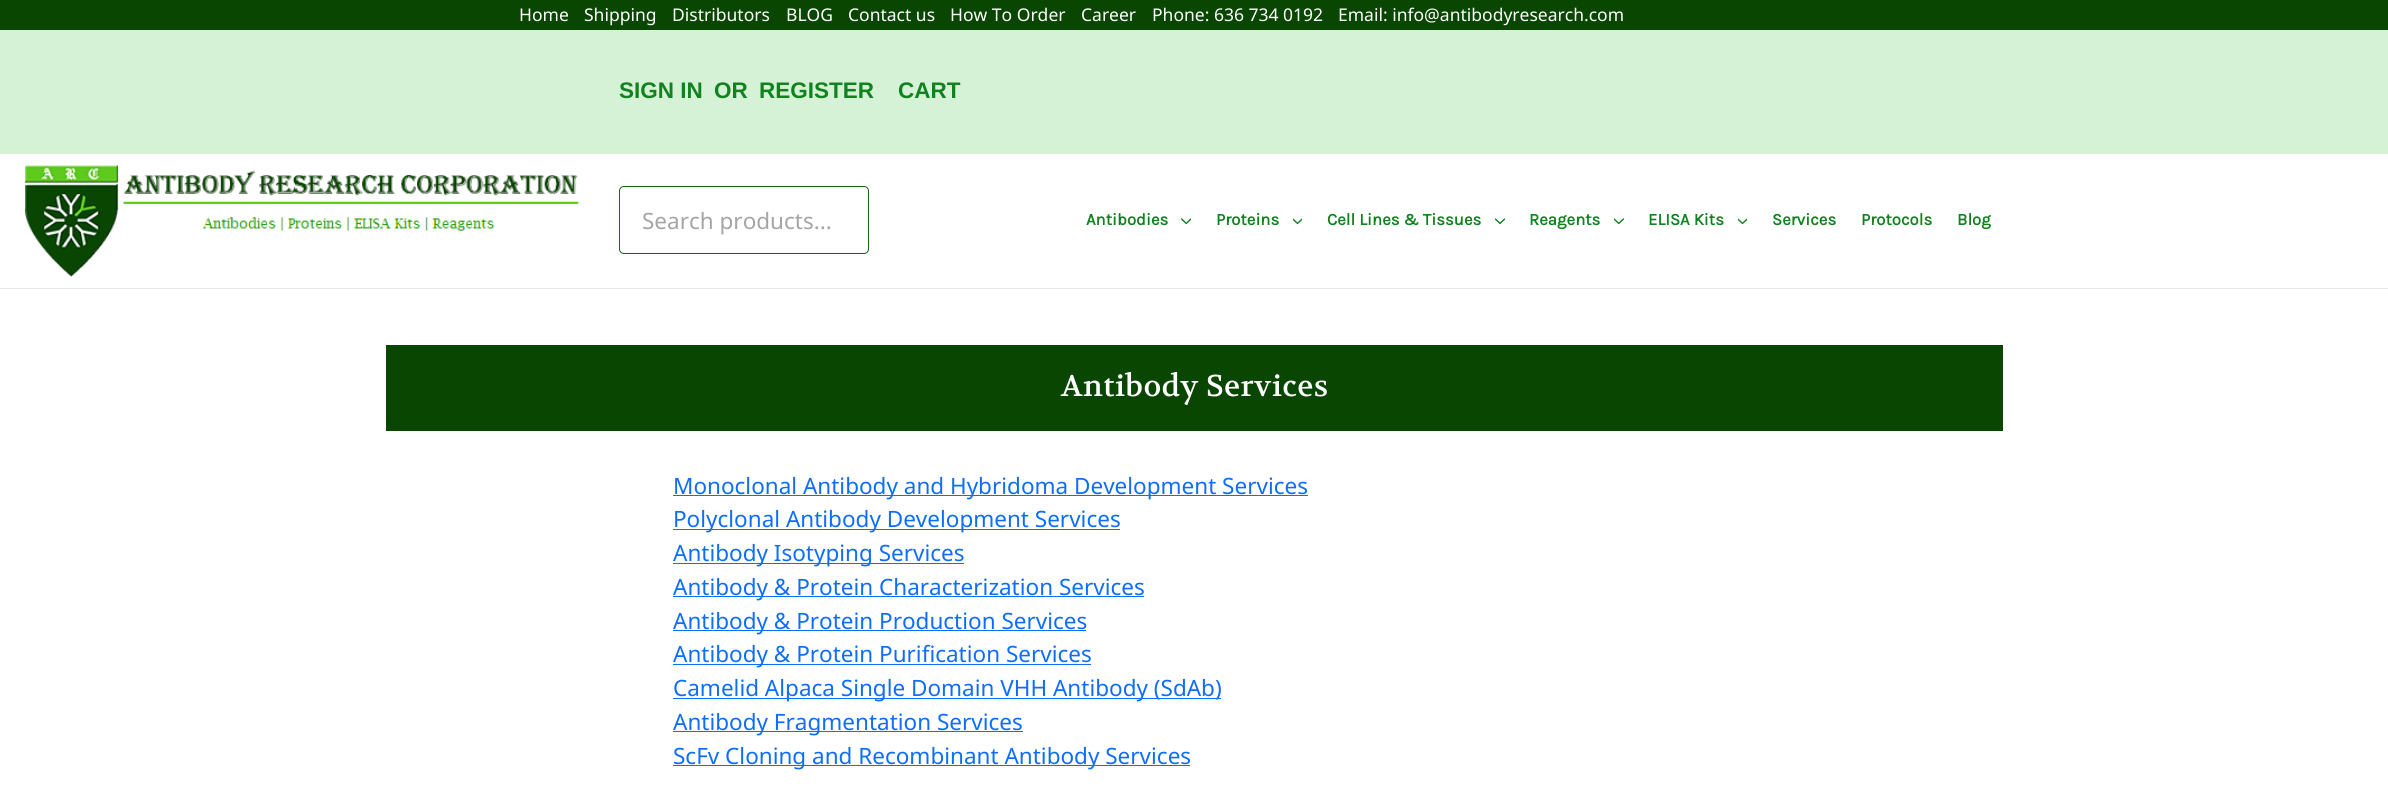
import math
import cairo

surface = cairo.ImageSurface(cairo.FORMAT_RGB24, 2388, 811)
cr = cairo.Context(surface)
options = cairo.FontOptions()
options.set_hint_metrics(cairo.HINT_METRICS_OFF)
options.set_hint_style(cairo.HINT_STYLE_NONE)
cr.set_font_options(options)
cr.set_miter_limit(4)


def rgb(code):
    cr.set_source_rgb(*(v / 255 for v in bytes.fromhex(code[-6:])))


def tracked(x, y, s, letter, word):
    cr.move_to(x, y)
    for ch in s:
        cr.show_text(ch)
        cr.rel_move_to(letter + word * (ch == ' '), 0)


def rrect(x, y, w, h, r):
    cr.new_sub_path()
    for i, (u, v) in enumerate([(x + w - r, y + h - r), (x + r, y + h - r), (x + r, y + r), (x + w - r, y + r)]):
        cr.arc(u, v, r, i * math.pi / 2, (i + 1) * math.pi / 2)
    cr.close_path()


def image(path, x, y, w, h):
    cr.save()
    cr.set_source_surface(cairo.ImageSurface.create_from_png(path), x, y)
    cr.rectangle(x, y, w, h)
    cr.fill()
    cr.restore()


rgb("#ffffff")
cr.paint()
for x, y, w, h, color in [
    (0, 30, 2388, 124, "#d6f2d6"),
    (0, 288, 2388, 1, "#e8e8e8"),
    (0, 0, 2388, 30, "#094602"),
]:
    rgb(color)
    cr.rectangle(x, y, w, h)
    cr.fill()
image("img/1.png", 25, 165, 554, 112)
rrect(619.5, 186.5, 249, 67, 4.5)
rgb("#15641a")
cr.set_line_width(1)
cr.stroke()
image("img/2.png", 1181, 218, 10, 7)
image("img/3.png", 1293, 218, 9, 7)
image("img/4.png", 1495, 218, 10, 7)
image("img/5.png", 1614, 218, 10, 7)
image("img/3.png", 1738, 218, 9, 7)
for x, y, w, h, color in [
    (386, 345, 1617, 86, "#094602"),
    (673, 495, 635, 1, "#0d6efd"),
    (673, 529, 447, 1, "#0d6efd"),
    (673, 563, 291, 1, "#0d6efd"),
    (673, 596, 471, 1, "#0d6efd"),
    (673, 630, 413, 1, "#0d6efd"),
    (673, 664, 418, 1, "#0d6efd"),
    (673, 698, 548, 1, "#0d6efd"),
    (673, 731, 350, 1, "#0d6efd"),
    (673, 765, 517, 1, "#0d6efd"),
]:
    rgb(color)
    cr.rectangle(x, y, w, h)
    cr.fill()
cr.select_font_face("Noto Sans")
cr.set_font_size(17.5)
rgb("#ffffff")
for x, y, s in [
    (519, 21, "Home"),
    (584, 21, "Shipping"),
    (672, 21, "Distributors"),
    (786, 21, "BLOG"),
    (848, 21, "Contact us"),
    (950, 21, "How To Order"),
    (1081, 21, "Career"),
    (1152, 21, "Phone: 636 734 0192"),
    (1338, 21, "Email: info@antibodyresearch.com"),
]:
    cr.move_to(x, y)
    cr.show_text(s)
cr.select_font_face("Liberation Sans", cairo.FONT_SLANT_NORMAL, cairo.FONT_WEIGHT_BOLD)
cr.set_font_size(22.5)
rgb("#10821f")
for x, y, s in [
    (619, 98, "SIGN IN"),
    (714, 98, "OR"),
    (759, 98, "REGISTER"),
    (898, 98, "CART"),
]:
    cr.move_to(x, y)
    cr.show_text(s)
cr.select_font_face("Noto Sans")
rgb("#a5a5a5")
cr.move_to(642, 229)
cr.show_text("Search products...")
cr.select_font_face("Karla", cairo.FONT_SLANT_NORMAL, cairo.FONT_WEIGHT_BOLD)
cr.set_font_size(16.75)
rgb("#10821f")
for x, y, s in [
    (1086, 225, "Antibodies"),
    (1216, 225, "Proteins"),
    (1327, 225, "Cell Lines & Tissues"),
    (1529, 225, "Reagents"),
    (1648, 225, "ELISA Kits"),
    (1772, 225, "Services"),
    (1861, 225, "Protocols"),
    (1957, 225, "Blog"),
]:
    cr.move_to(x, y)
    cr.show_text(s)
cr.select_font_face("Volkhov")
cr.set_font_size(30)
rgb("#ffffff")
tracked(1061, 396, "Antibody Services", 0.3, 0)
cr.select_font_face("Noto Sans")
cr.set_font_size(22.5)
rgb("#0d6efd")
for x, y, s in [
    (673, 494, "Monoclonal Antibody and Hybridoma Development Services"),
    (673, 527, "Polyclonal Antibody Development Services"),
    (673, 561, "Antibody Isotyping Services"),
    (673, 595, "Antibody & Protein Characterization Services"),
    (673, 629, "Antibody & Protein Production Services"),
    (673, 662, "Antibody & Protein Purification Services"),
    (673, 696, "Camelid Alpaca Single Domain VHH Antibody (SdAb)"),
    (673, 730, "Antibody Fragmentation Services"),
    (673, 764, "ScFv Cloning and Recombinant Antibody Services"),
]:
    cr.move_to(x, y)
    cr.show_text(s)
surface.write_to_png("page.png")
